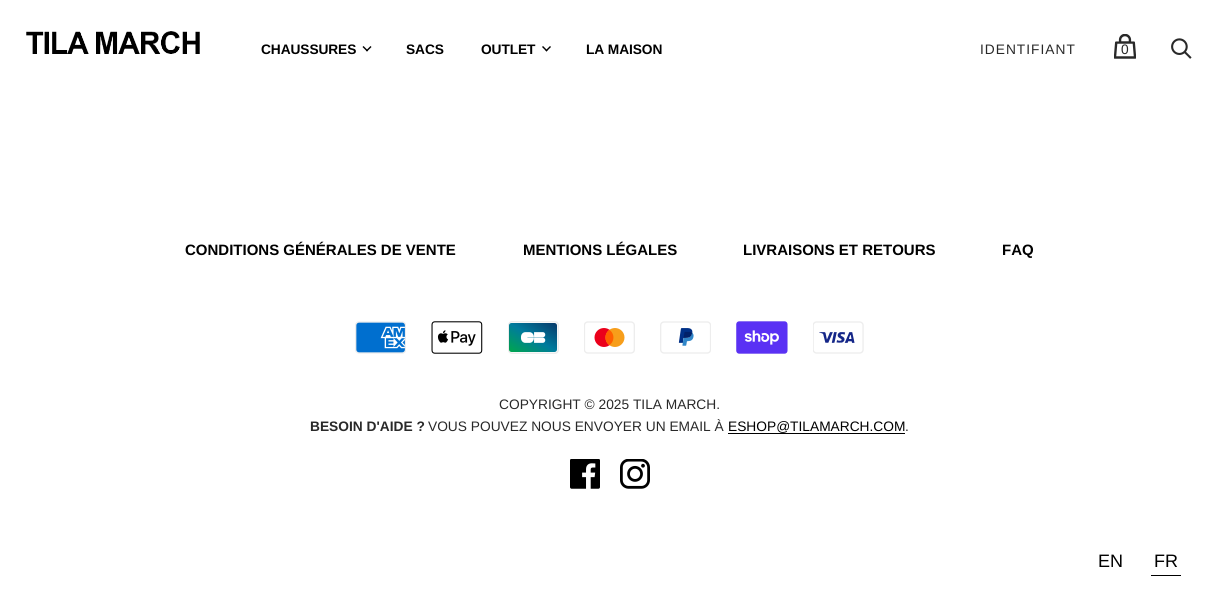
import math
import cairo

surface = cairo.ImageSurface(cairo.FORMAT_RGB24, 1218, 601)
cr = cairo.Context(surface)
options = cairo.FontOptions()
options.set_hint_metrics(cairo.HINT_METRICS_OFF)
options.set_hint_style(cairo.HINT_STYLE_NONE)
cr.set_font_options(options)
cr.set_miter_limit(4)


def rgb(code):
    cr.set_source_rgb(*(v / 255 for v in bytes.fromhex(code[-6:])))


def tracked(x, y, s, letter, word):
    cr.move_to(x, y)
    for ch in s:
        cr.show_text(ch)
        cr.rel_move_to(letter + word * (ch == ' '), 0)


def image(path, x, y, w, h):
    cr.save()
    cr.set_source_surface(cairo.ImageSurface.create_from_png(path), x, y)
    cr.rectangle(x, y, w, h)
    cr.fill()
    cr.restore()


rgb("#ffffff")
cr.paint()
image("img/1.png", 26, 31, 174, 23)
rgb("#000000")
cr.new_path()
cr.move_to(366, 50.5)
cr.line_to(370.5, 46)
cr.line_to(371.5, 47)
cr.line_to(367, 51.5)
cr.close_path()
cr.fill()
cr.new_path()
cr.move_to(362.5, 47)
cr.line_to(363.5, 46)
cr.line_to(368, 50.5)
cr.line_to(367, 51.5)
cr.close_path()
cr.fill()
cr.new_path()
cr.move_to(545.5, 50.5)
cr.line_to(550, 46)
cr.line_to(551, 47)
cr.line_to(546.5, 51.5)
cr.close_path()
cr.fill()
cr.new_path()
cr.move_to(542, 47)
cr.line_to(543, 46)
cr.line_to(547.5, 50.5)
cr.line_to(546.5, 51.5)
cr.close_path()
cr.fill()
image("img/2.png", 1114, 34, 22, 25)
image("img/3.png", 1171, 38, 21, 21)
image("img/4.png", 355, 321, 51, 33)
image("img/5.png", 431, 321, 52, 33)
image("img/6.png", 508, 321, 51, 33)
image("img/7.png", 584, 321, 51, 33)
image("img/8.png", 660, 321, 51, 33)
image("img/9.png", 736, 321, 52, 33)
image("img/10.png", 813, 321, 51, 33)
cr.rectangle(728, 433, 177, 1)
cr.fill()
image("img/11.png", 570, 459, 30, 30)
image("img/12.png", 620, 459, 30, 30)
cr.rectangle(1151, 575, 30, 1)
cr.fill()
cr.select_font_face("Liberation Sans", cairo.FONT_SLANT_NORMAL, cairo.FONT_WEIGHT_BOLD)
cr.set_font_size(13.75)
for x, y, s in [
    (261, 54, "CHAUSSURES"),
    (406, 54, "SACS"),
    (481, 54, "OUTLET"),
    (586, 54, "LA MAISON"),
]:
    tracked(x, y, s, -0.1, 0)
cr.select_font_face("Liberation Sans")
rgb("#292929")
tracked(980, 54, "IDENTIFIANT", 1, 0)
cr.move_to(1121, 54)
cr.show_text("0")
cr.select_font_face("Liberation Sans", cairo.FONT_SLANT_NORMAL, cairo.FONT_WEIGHT_BOLD)
cr.set_font_size(15)
rgb("#000000")
for x, y, s in [
    (185, 255, "CONDITIONS GÉNÉRALES DE VENTE"),
    (523, 255, "MENTIONS LÉGALES"),
    (743, 255, "LIVRAISONS ET RETOURS"),
    (1002, 255, "FAQ"),
]:
    cr.move_to(x, y)
    cr.show_text(s)
cr.select_font_face("Liberation Sans")
cr.set_font_size(13.75)
rgb("#292929")
cr.move_to(499, 409)
cr.show_text("COPYRIGHT © 2025 TILA MARCH.")
cr.select_font_face("Liberation Sans", cairo.FONT_SLANT_NORMAL, cairo.FONT_WEIGHT_BOLD)
cr.move_to(310, 431)
cr.show_text("BESOIN D'AIDE ?")
cr.select_font_face("Liberation Sans")
cr.move_to(428, 431)
cr.show_text("VOUS POUVEZ NOUS ENVOYER UN EMAIL À")
rgb("#000000")
cr.move_to(728, 431)
cr.show_text("ESHOP@TILAMARCH.COM")
rgb("#292929")
cr.move_to(905, 431)
cr.show_text(".")
cr.set_font_size(18)
rgb("#000000")
cr.move_to(1098, 567)
cr.show_text("EN")
cr.move_to(1154, 567)
cr.show_text("FR")
surface.write_to_png("page.png")
